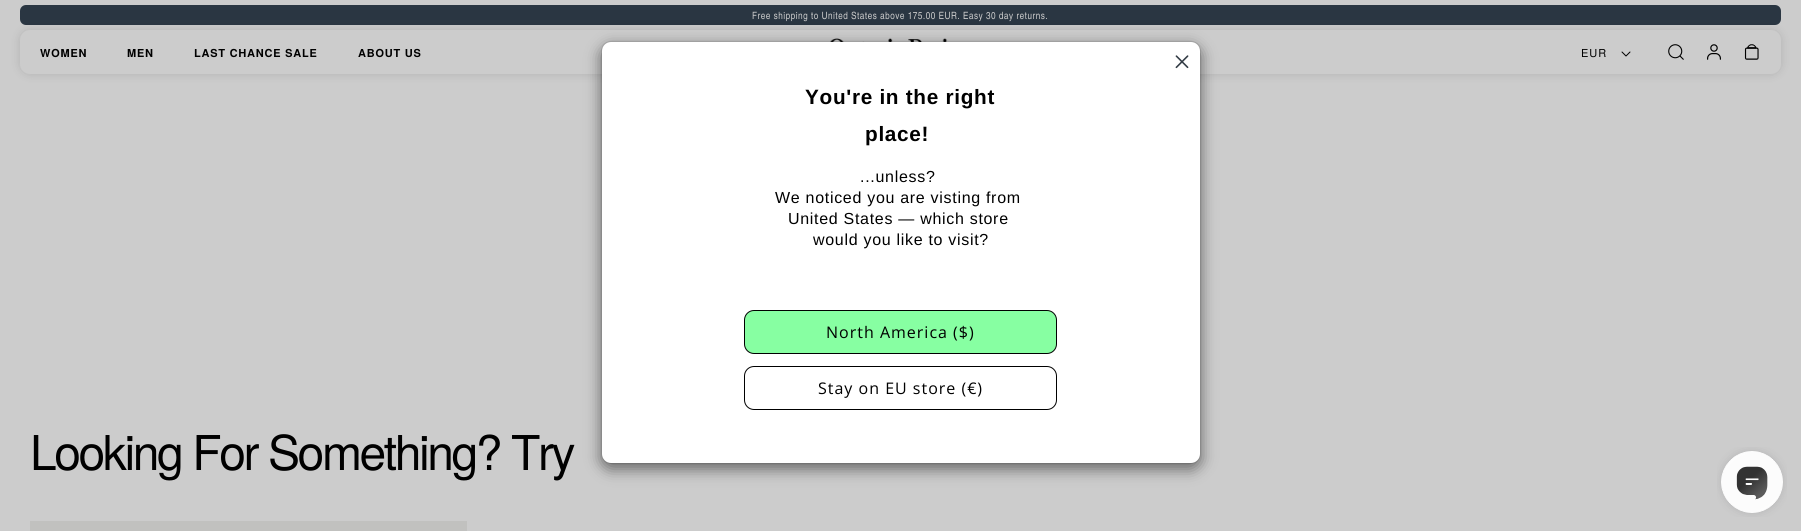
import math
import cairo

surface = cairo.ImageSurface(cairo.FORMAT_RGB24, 1801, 531)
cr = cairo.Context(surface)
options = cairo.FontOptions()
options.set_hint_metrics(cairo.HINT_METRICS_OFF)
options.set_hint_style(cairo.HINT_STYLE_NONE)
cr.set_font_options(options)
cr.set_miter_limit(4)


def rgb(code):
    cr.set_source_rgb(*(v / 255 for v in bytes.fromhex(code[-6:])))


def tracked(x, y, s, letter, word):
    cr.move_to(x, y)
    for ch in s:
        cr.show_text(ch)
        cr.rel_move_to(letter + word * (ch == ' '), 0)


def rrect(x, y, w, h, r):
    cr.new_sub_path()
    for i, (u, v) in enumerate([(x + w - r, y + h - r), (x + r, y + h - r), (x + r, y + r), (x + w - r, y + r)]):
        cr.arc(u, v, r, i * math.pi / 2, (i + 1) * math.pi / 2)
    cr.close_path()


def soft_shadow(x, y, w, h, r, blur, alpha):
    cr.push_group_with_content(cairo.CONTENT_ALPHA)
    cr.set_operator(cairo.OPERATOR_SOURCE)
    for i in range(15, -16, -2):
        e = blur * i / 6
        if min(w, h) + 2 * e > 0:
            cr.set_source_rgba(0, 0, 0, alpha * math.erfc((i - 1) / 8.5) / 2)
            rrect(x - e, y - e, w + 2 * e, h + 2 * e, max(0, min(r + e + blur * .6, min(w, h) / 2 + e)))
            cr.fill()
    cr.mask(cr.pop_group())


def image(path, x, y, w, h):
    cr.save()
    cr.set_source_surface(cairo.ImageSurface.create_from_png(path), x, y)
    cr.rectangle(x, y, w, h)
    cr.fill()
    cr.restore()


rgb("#cccccc")
cr.paint()
rgb("#2a3642")
rrect(20, 5, 1761, 20, 6)
cr.fill()
image("img/1.png", 752, 11, 295, 11)
rgb("#000000")
soft_shadow(20, 30, 1761, 44, 10, 5, 0.13)
rgb("#cccccc")
rrect(20, 30, 1761, 44, 10)
cr.fill()
image("img/2.png", 830, 38, 118, 4)
image("img/3.png", 40, 48, 46, 10)
image("img/4.png", 127, 49, 26, 8)
image("img/5.png", 194, 48, 123, 10)
image("img/6.png", 358, 48, 63, 10)
image("img/7.png", 1621, 51, 10, 6)
image("img/8.png", 1668, 44, 16, 16)
image("img/9.png", 1707, 44, 14, 16)
image("img/10.png", 1744, 44, 15, 16)
rgb("#000000")
soft_shadow(601, 46, 600, 423, 10, 7.5, 0.5)
rgb("#ffffff")
rrect(602, 42, 598, 421, 9)
cr.fill()
rrect(601.5, 41.5, 599, 422, 9.5)
cr.set_source_rgba(0, 0, 0, 0.1)
cr.set_line_width(1)
cr.stroke()
image("img/11.png", 1175, 55, 14, 14)
rgb("#87ffa2")
rrect(744.5, 310.5, 312, 43, 9.5)
cr.fill_preserve()
rgb("#000000")
cr.stroke()
rrect(744.5, 366.5, 312, 43, 9.5)
cr.stroke()
rgb("#c1c1bf")
cr.rectangle(30, 521, 437, 10)
cr.fill()
image("img/12.png", 1717, 447, 70, 70)
cr.select_font_face("TeX Gyre Heros")
cr.set_font_size(11)
rgb("#000000")
tracked(1581, 57, "EUR", 1, 0)
cr.select_font_face("Liberation Sans", cairo.FONT_SLANT_NORMAL, cairo.FONT_WEIGHT_BOLD)
cr.set_font_size(20.75)
tracked(805, 104, "You're in the right", 0.7, 0)
tracked(865, 141, "place!", 0.7, 0)
cr.select_font_face("Liberation Sans")
cr.set_font_size(16)
for x, y, s in [
    (860, 182, "...unless?"),
    (775, 203, "We noticed you are visting from"),
    (788, 224, "United States — which store"),
    (813, 245, "would you like to visit?"),
]:
    tracked(x, y, s, 0.7, 0)
cr.select_font_face("Open Sans")
tracked(826, 338, "North America ($)", 1, 0)
tracked(818, 394, "Stay on EU store (€)", 1, 0)
cr.select_font_face("TeX Gyre Heros")
cr.set_font_size(48)
tracked(30, 470, "Looking For Something? Try", -2.4, 0)
surface.write_to_png("page.png")
